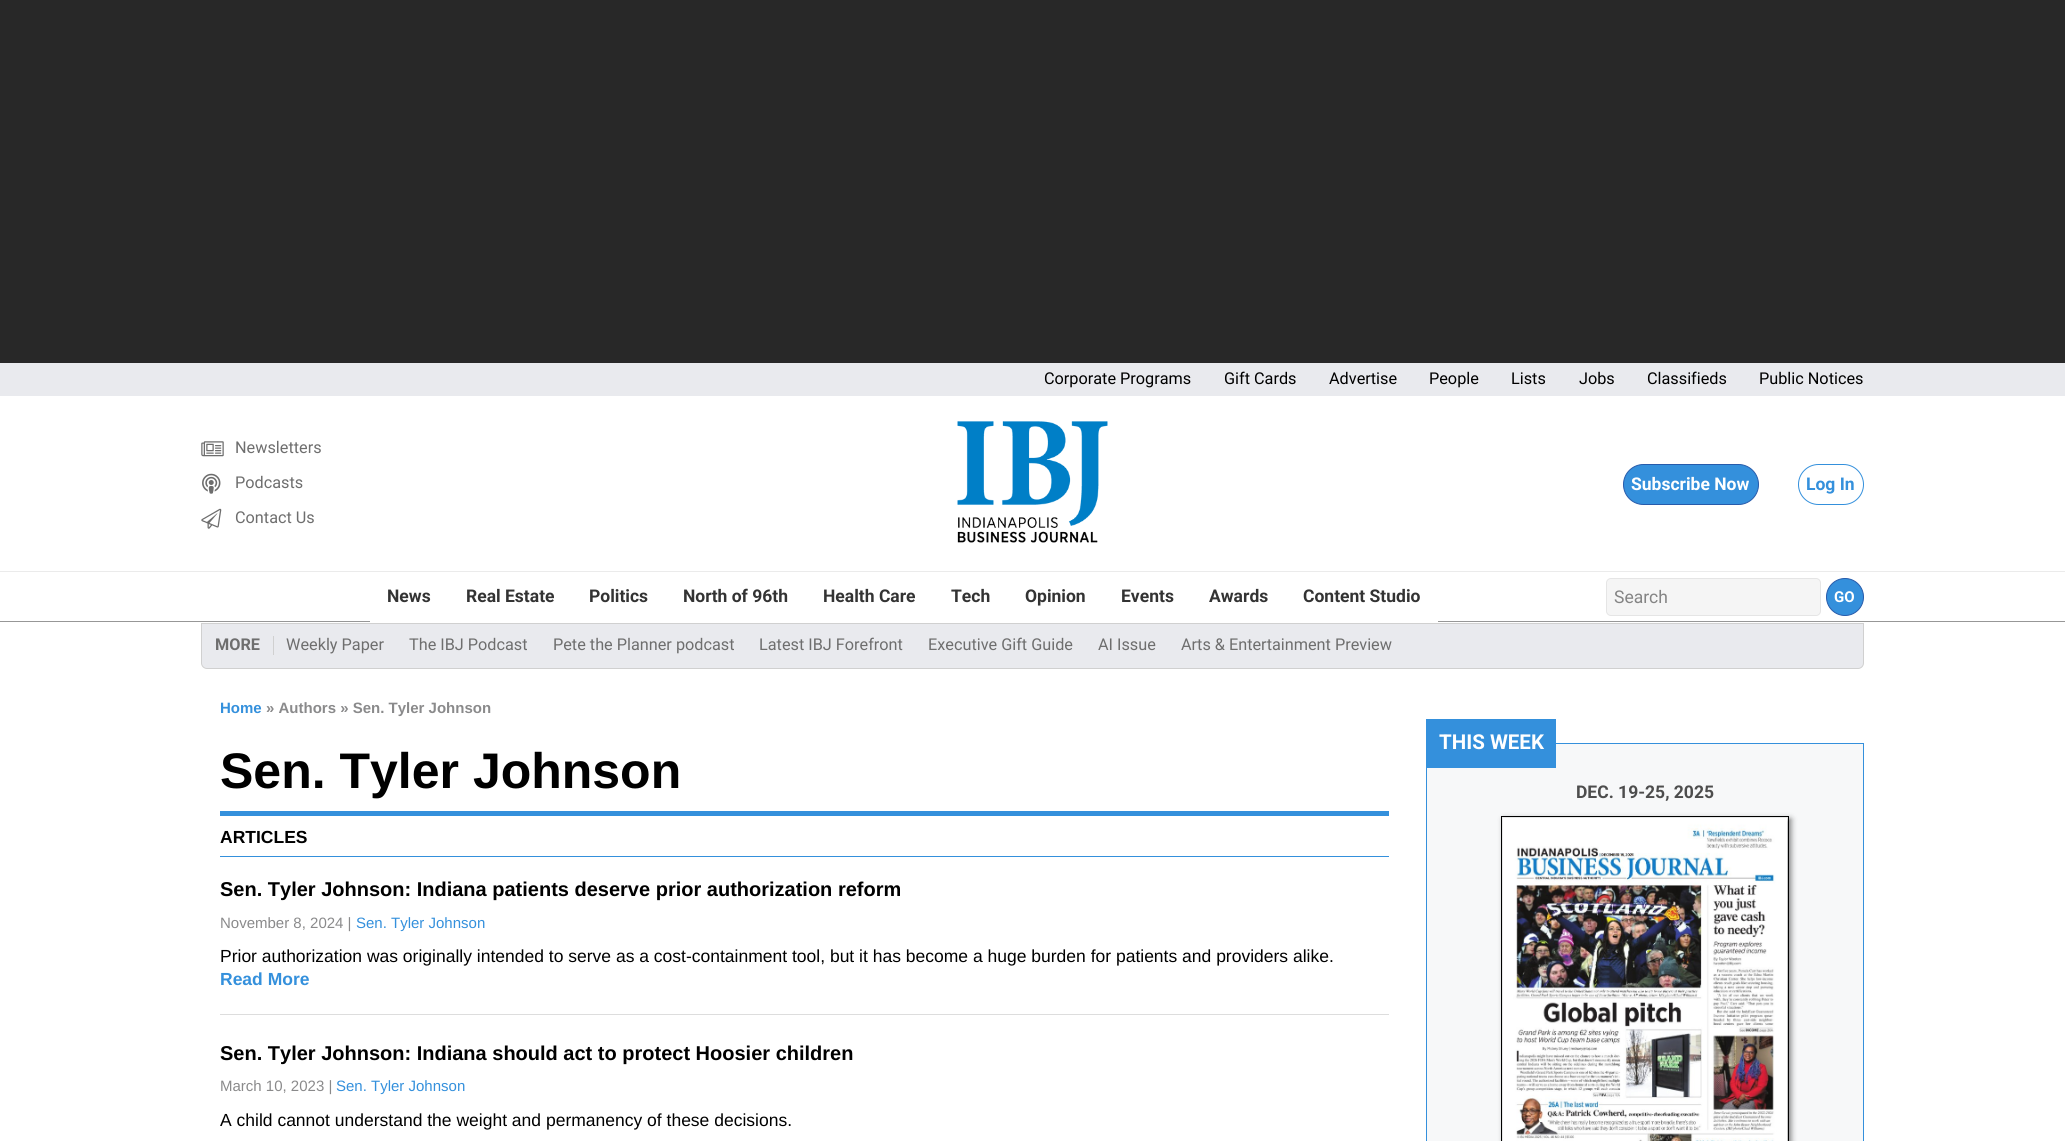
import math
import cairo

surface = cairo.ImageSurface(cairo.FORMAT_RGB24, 2065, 1141)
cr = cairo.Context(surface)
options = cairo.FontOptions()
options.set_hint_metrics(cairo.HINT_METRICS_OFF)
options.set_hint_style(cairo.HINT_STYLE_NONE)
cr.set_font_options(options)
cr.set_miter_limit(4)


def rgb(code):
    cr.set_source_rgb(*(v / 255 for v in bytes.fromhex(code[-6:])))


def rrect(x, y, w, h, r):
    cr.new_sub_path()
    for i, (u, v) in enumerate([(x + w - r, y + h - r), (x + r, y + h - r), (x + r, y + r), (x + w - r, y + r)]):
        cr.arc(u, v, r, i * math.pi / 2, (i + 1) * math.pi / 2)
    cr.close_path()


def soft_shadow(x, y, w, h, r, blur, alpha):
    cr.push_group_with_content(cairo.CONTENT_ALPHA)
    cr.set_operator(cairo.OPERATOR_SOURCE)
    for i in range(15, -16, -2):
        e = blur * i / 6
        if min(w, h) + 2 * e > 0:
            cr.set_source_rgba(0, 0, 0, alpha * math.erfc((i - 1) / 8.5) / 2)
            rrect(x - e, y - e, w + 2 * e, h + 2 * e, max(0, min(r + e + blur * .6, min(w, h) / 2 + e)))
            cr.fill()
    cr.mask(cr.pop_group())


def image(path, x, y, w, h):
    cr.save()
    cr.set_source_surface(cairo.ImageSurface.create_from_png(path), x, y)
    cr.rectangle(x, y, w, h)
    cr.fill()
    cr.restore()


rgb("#ffffff")
cr.paint()
rgb("#282828")
cr.rectangle(0, 0, 2065, 363)
cr.fill()
rgb("#e9eaee")
cr.rectangle(0, 363, 2065, 33)
cr.fill()
image("img/1.png", 201, 441, 23, 16)
image("img/2.png", 202, 473, 19, 21)
image("img/3.png", 201, 508, 21, 21)
image("img/4.png", 957, 421, 151, 122)
rgb("#3490dc")
rrect(1623.5, 464.5, 135, 40, 20)
cr.fill_preserve()
rgb("#275bab")
cr.set_line_width(1)
cr.stroke()
rrect(1798.5, 464.5, 65, 40, 20)
rgb("#3490dc")
cr.stroke()
for x, y, w, h, color in [
    (0, 571, 2065, 1, "#ebebeb"),
    (0, 621, 2065, 1, "#979797"),
    (370, 621, 1068, 1, "#ffffff"),
]:
    rgb(color)
    cr.rectangle(x, y, w, h)
    cr.fill()
rgb("#f5f5f5")
rrect(1606.5, 578.5, 214, 37, 4.5)
cr.fill_preserve()
rgb("#e5e5e5")
cr.stroke()
rgb("#3490dc")
cr.arc(1845, 597, 18.5, 0, 2 * math.pi)
cr.fill_preserve()
rgb("#275bab")
cr.stroke()
rgb("#e9eaee")
cr.new_path()
cr.move_to(201.5, 623.5)
cr.line_to(1863.5, 623.5)
cr.line_to(1863.5, 663)
cr.curve_to(1863.5, 666, 1861, 668.5, 1858, 668.5)
cr.line_to(207, 668.5)
cr.curve_to(204, 668.5, 201.5, 666, 201.5, 663)
cr.close_path()
cr.fill_preserve()
rgb("#d0d0d0")
cr.stroke()
for x, y, w, h, color in [
    (273, 636, 1, 19, "#d0d0d0"),
    (220, 811, 1169, 5, "#3490dc"),
    (220, 856, 1169, 1, "#3490dc"),
    (220, 1014, 1169, 1, "#dddddd"),
]:
    rgb(color)
    cr.rectangle(x, y, w, h)
    cr.fill()
rgb("#f7f8f9")
cr.rectangle(1426.5, 743.5, 437, 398)
cr.fill_preserve()
rgb("#3490dc")
cr.stroke()
cr.rectangle(1426, 719, 130, 49)
cr.fill()
rgb("#000000")
soft_shadow(1504, 819, 287, 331, 0, 3, 0.5)
cr.rectangle(1501.5, 816.5, 287, 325)
rgb("#000000")
cr.stroke()
image("img/5.png", 1502, 817, 286, 324)
cr.select_font_face("Roboto")
cr.set_font_size(16.25)
for x, y, s in [
    (1044, 384, "Corporate Programs"),
    (1224, 384, "Gift Cards"),
    (1329, 384, "Advertise"),
    (1429, 384, "People"),
    (1511, 384, "Lists"),
    (1579, 384, "Jobs"),
    (1647, 384, "Classifieds"),
    (1759, 384, "Public Notices"),
]:
    cr.move_to(x, y)
    cr.show_text(s)
rgb("#6e6e6e")
for x, y, s in [
    (235, 453, "Newsletters"),
    (235, 488, "Podcasts"),
    (235, 523, "Contact Us"),
]:
    cr.move_to(x, y)
    cr.show_text(s)
cr.select_font_face("Roboto", cairo.FONT_SLANT_NORMAL, cairo.FONT_WEIGHT_BOLD)
cr.set_font_size(17.5)
rgb("#ffffff")
cr.move_to(1631, 490)
cr.show_text("Subscribe Now")
rgb("#3490dc")
cr.move_to(1806, 490)
cr.show_text("Log In")
rgb("#333333")
for x, y, s in [
    (387, 602, "News"),
    (466, 602, "Real Estate"),
    (589, 602, "Politics"),
    (683, 602, "North of 96th"),
    (823, 602, "Health Care"),
    (951, 602, "Tech"),
    (1025, 602, "Opinion"),
    (1121, 602, "Events"),
    (1209, 602, "Awards"),
    (1303, 602, "Content Studio"),
]:
    cr.move_to(x, y)
    cr.show_text(s)
cr.select_font_face("Roboto")
rgb("#848484")
cr.move_to(1614, 603)
cr.show_text("Search")
cr.select_font_face("Roboto", cairo.FONT_SLANT_NORMAL, cairo.FONT_WEIGHT_BOLD)
cr.set_font_size(15)
rgb("#ffffff")
cr.move_to(1834, 602)
cr.show_text("GO")
cr.set_font_size(16.25)
rgb("#6e6e6e")
cr.move_to(215, 650)
cr.show_text("MORE")
cr.select_font_face("Roboto")
for x, y, s in [
    (286, 650, "Weekly Paper"),
    (409, 650, "The IBJ Podcast"),
    (553, 650, "Pete the Planner podcast"),
    (759, 650, "Latest IBJ Forefront"),
    (928, 650, "Executive Gift Guide"),
    (1098, 650, "AI Issue"),
    (1181, 650, "Arts & Entertainment Preview"),
]:
    cr.move_to(x, y)
    cr.show_text(s)
cr.select_font_face("Liberation Sans", cairo.FONT_SLANT_NORMAL, cairo.FONT_WEIGHT_BOLD)
cr.set_font_size(15)
rgb("#3490dc")
cr.move_to(220, 713)
cr.show_text("Home")
rgb("#8a8a8b")
cr.move_to(266, 713)
cr.show_text("» Authors » Sen. Tyler Johnson")
cr.set_font_size(50)
rgb("#000000")
cr.move_to(220, 788)
cr.show_text("Sen. Tyler Johnson")
cr.set_font_size(17.5)
cr.move_to(220, 843)
cr.show_text("ARTICLES")
cr.set_font_size(20)
cr.move_to(220, 896)
cr.show_text("Sen. Tyler Johnson: Indiana patients deserve prior authorization reform")
cr.select_font_face("Liberation Sans")
cr.set_font_size(15)
rgb("#8a8a8b")
cr.move_to(220, 928)
cr.show_text("November 8, 2024 |")
rgb("#3490dc")
cr.move_to(356, 928)
cr.show_text("Sen. Tyler Johnson")
cr.set_font_size(17.5)
rgb("#000000")
cr.move_to(220, 962)
cr.show_text("Prior authorization was originally intended to serve as a cost-containment tool, but it has become a huge burden for patients and providers alike.")
cr.select_font_face("Liberation Sans", cairo.FONT_SLANT_NORMAL, cairo.FONT_WEIGHT_BOLD)
rgb("#3490dc")
cr.move_to(220, 985)
cr.show_text("Read More")
cr.set_font_size(20)
rgb("#000000")
cr.move_to(220, 1060)
cr.show_text("Sen. Tyler Johnson: Indiana should act to protect Hoosier children")
cr.select_font_face("Liberation Sans")
cr.set_font_size(15)
rgb("#8a8a8b")
cr.move_to(220, 1091)
cr.show_text("March 10, 2023 |")
rgb("#3490dc")
cr.move_to(336, 1091)
cr.show_text("Sen. Tyler Johnson")
cr.set_font_size(17.5)
rgb("#000000")
cr.move_to(220, 1126)
cr.show_text("A child cannot understand the weight and permanency of these decisions.")
cr.select_font_face("Roboto", cairo.FONT_SLANT_NORMAL, cairo.FONT_WEIGHT_BOLD)
cr.set_font_size(20.5)
rgb("#ffffff")
cr.move_to(1439, 749)
cr.show_text("THIS WEEK")
cr.set_font_size(17.5)
rgb("#4d4d4d")
cr.move_to(1576, 798)
cr.show_text("DEC. 19-25, 2025")
surface.write_to_png("page.png")
